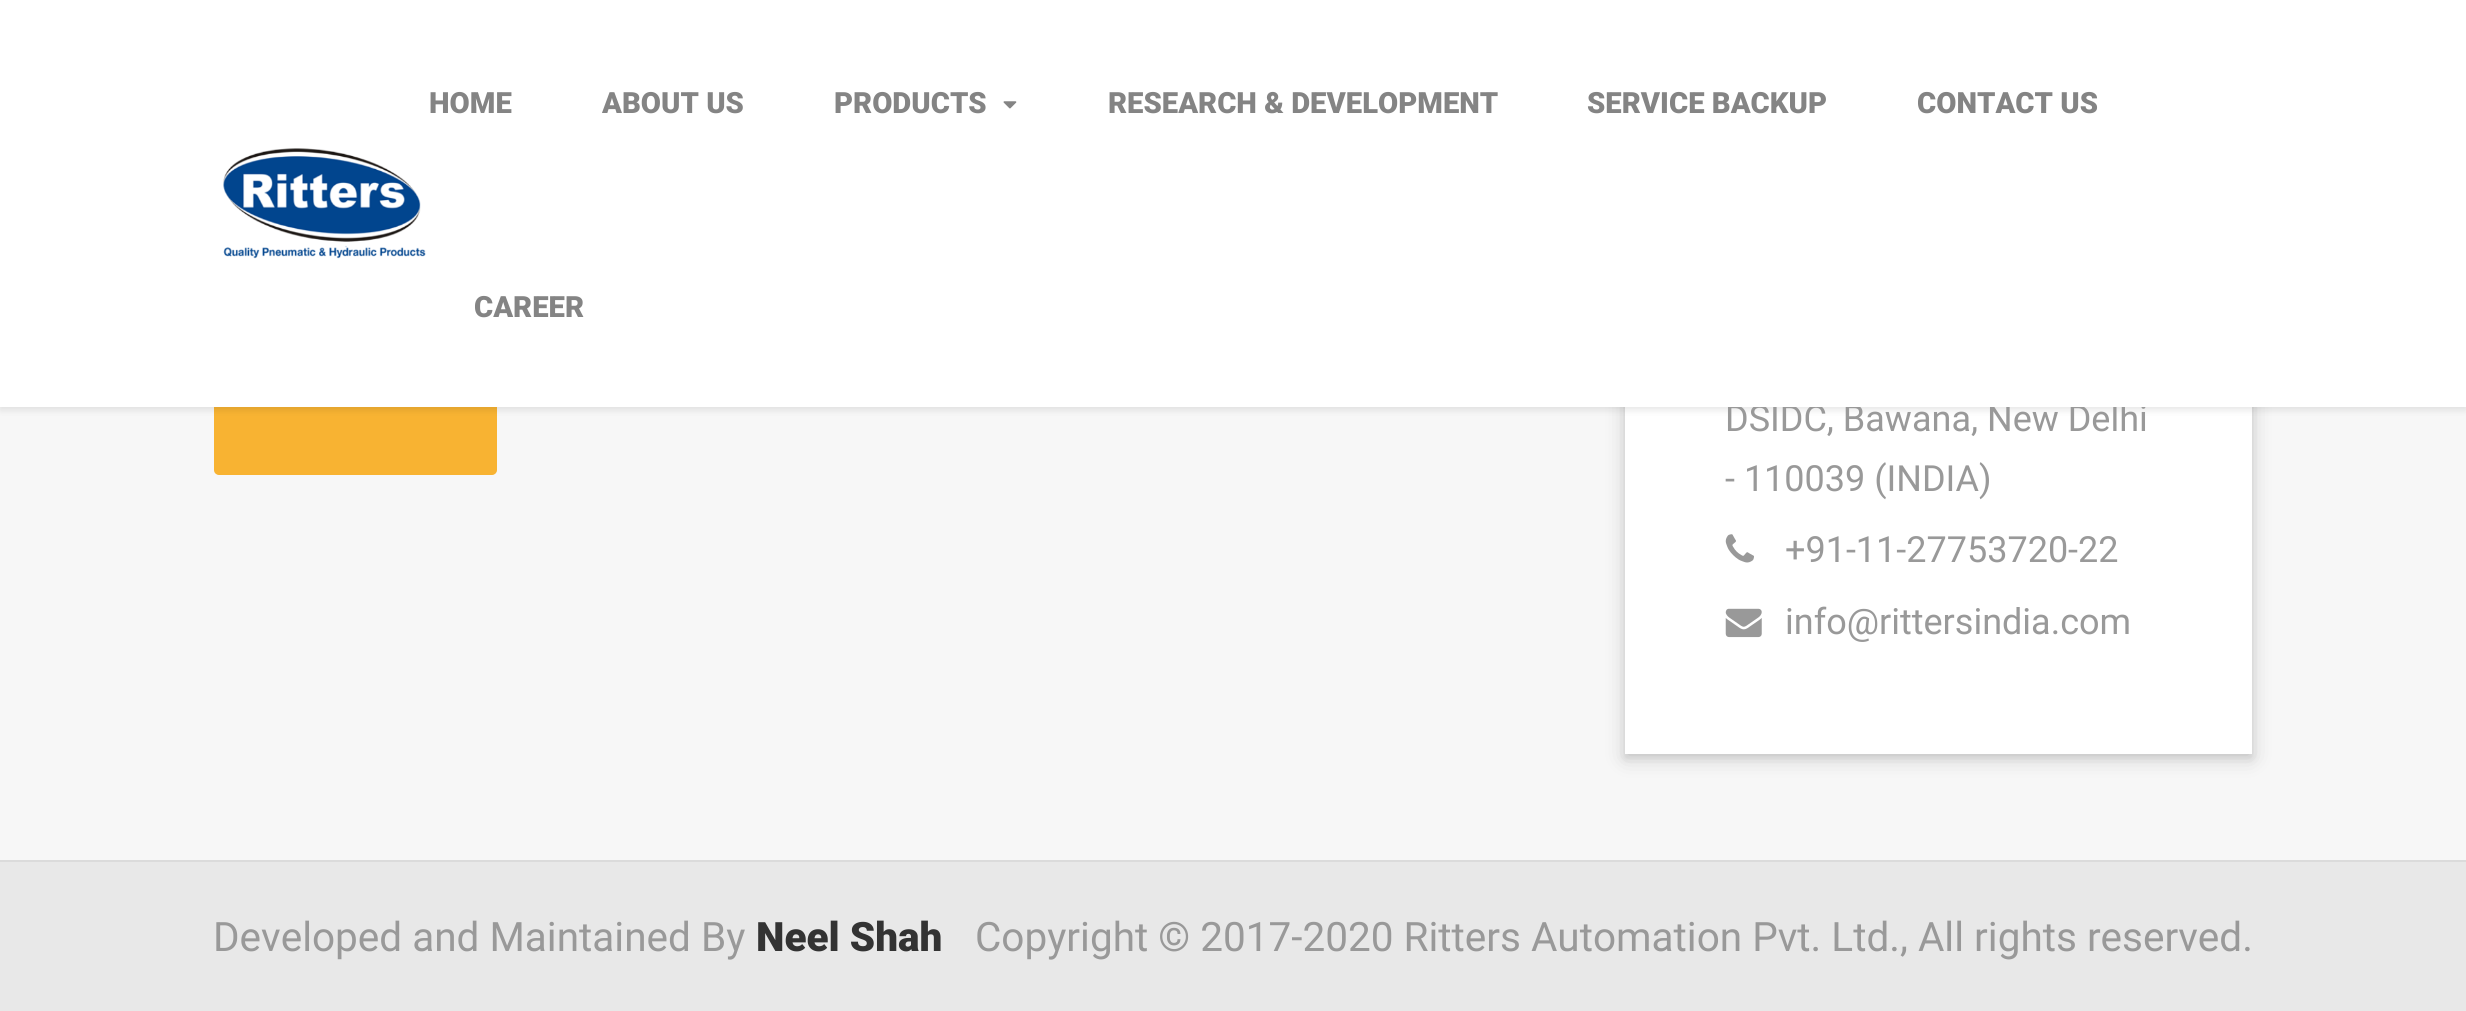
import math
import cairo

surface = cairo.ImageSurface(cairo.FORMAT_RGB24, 2466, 1011)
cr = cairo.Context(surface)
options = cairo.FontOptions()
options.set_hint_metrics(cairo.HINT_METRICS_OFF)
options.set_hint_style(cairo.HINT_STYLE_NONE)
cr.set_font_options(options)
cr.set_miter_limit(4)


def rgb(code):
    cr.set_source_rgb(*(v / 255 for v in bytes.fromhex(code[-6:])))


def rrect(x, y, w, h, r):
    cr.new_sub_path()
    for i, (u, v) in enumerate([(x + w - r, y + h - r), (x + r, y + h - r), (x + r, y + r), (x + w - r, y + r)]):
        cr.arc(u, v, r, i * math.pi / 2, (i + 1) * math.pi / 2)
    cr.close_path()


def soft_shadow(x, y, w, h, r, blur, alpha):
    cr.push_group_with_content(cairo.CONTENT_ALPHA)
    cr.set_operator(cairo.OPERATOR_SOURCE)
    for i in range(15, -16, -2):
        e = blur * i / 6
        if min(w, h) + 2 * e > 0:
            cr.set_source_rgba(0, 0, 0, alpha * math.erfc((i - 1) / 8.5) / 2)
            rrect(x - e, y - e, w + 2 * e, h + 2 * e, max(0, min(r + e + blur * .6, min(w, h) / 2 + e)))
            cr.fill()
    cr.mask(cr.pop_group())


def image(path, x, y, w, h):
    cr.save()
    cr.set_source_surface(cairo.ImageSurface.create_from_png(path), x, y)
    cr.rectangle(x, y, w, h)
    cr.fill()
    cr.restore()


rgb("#f7f7f7")
cr.paint()
rgb("#f8b332")
rrect(215, 341, 281, 133, 4)
cr.fill_preserve()
cr.stroke()
rgb("#000000")
soft_shadow(1625, -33, 627, 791, 0, 11, 0.15)
soft_shadow(1625, -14, 627, 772, 0, 4.5, 0.1)
rgb("#ffffff")
cr.rectangle(1625, 407, 627, 347)
cr.fill()
rgb("#000000")
soft_shadow(0, 2, 2466, 408, 0, 3.5, 0.1)
image("img/3.png", 1725, 534, 29, 29)
image("img/4.png", 1725, 608, 37, 30)
rgb("#e8e8e8")
cr.rectangle(0, 862, 2466, 149)
cr.fill()
rgb("#dbdbdb")
cr.rectangle(0, 860, 2466, 2)
cr.fill()
cr.select_font_face("Roboto")
cr.set_font_size(36)
rgb("#999999")
cr.move_to(1725, 431)
cr.show_text("DSIDC, Bawana, New Delhi")
rgb("#ffffff")
cr.rectangle(0, 0, 2466, 407)
cr.fill()
cr.select_font_face("Roboto Black")
cr.set_font_size(29.25)
rgb("#848484")
for x, y, s in [
    (474, 317, "CAREER"),
    (1917, 113, "CONTACT US"),
    (1587, 113, "SERVICE BACKUP"),
    (1108, 113, "RESEARCH & DEVELOPMENT"),
]:
    cr.move_to(x, y)
    cr.show_text(s)
image("img/2.png", 1003, 101, 14, 8)
for x, y, s in [
    (834, 113, "PRODUCTS"),
    (602, 113, "ABOUT US"),
    (429, 113, "HOME"),
]:
    cr.move_to(x, y)
    cr.show_text(s)
image("img/1.png", 223, 148, 203, 111)
cr.select_font_face("Roboto")
cr.set_font_size(36)
rgb("#999999")
for x, y, s in [
    (1725, 491, "- 110039 (INDIA)"),
    (1785, 562, "+91-11-27753720-22"),
    (1785, 634, "info@rittersindia.com"),
]:
    cr.move_to(x, y)
    cr.show_text(s)
cr.set_font_size(40.5)
cr.move_to(213, 951)
cr.show_text("Developed and Maintained By")
cr.select_font_face("Roboto Black")
rgb("#333333")
cr.move_to(756, 951)
cr.show_text("Neel Shah")
cr.select_font_face("Roboto")
rgb("#999999")
cr.move_to(975, 951)
cr.show_text("Copyright © 2017-2020 Ritters Automation Pvt. Ltd., All rights reserved.")
surface.write_to_png("page.png")
